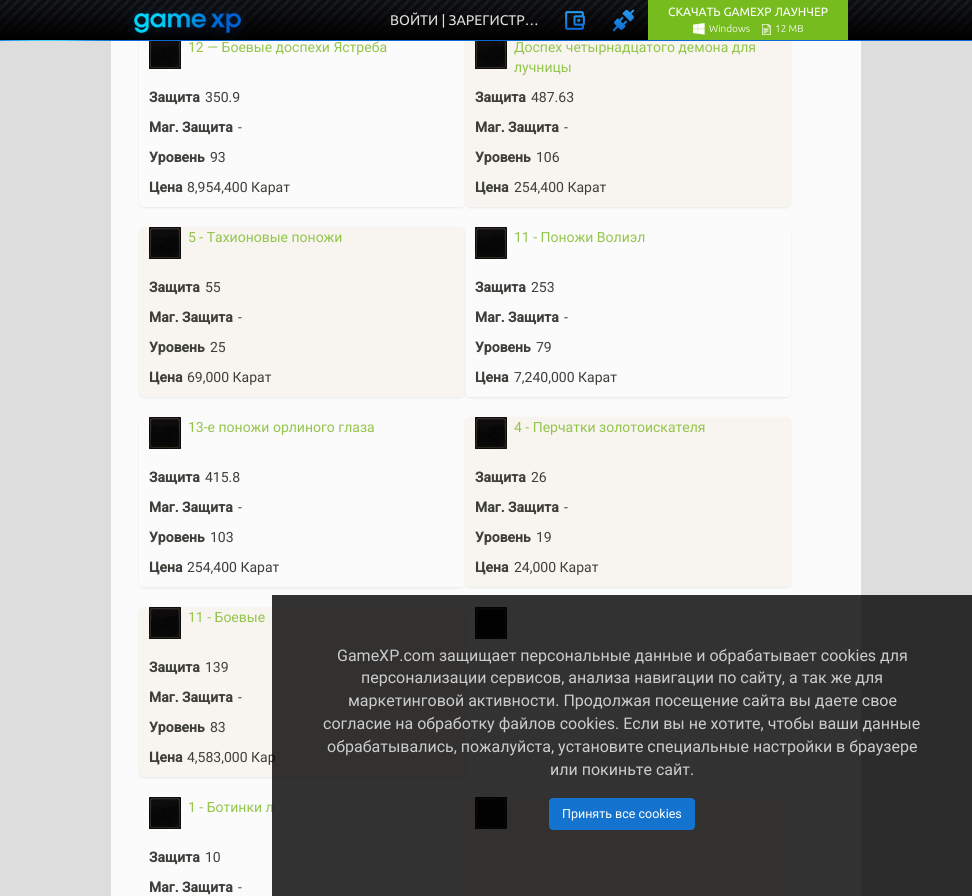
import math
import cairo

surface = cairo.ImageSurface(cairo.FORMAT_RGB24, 972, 896)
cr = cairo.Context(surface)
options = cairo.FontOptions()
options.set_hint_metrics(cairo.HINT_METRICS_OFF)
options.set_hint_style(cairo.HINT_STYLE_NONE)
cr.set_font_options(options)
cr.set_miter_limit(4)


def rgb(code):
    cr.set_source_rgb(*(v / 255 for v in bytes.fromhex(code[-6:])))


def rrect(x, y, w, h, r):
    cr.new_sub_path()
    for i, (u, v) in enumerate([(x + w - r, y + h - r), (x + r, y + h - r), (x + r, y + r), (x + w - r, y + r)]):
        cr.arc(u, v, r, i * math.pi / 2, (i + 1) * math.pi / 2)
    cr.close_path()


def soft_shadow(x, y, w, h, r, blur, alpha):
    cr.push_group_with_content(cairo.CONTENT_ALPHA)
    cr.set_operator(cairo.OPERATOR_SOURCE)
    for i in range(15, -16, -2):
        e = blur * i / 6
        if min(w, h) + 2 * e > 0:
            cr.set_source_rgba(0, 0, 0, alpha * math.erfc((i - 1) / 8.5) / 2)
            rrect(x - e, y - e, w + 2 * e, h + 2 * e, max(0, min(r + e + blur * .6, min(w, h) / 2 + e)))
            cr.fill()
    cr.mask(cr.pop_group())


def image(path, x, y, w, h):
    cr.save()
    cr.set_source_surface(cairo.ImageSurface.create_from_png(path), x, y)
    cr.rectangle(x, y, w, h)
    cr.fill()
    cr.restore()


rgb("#dddddd")
cr.paint()
rgb("#fcfbfb")
cr.rectangle(111, 41, 750, 855)
cr.fill()
cr.save()
cr.set_fill_rule(cairo.FILL_RULE_EVEN_ODD)
cr.new_path()
cr.move_to(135, 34)
cr.line_to(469, 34)
cr.line_to(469, 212)
cr.line_to(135, 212)
cr.close_path()
cr.move_to(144, 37)
cr.line_to(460, 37)
cr.curve_to(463, 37, 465, 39, 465, 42)
cr.line_to(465, 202)
cr.curve_to(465, 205, 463, 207, 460, 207)
cr.line_to(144, 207)
cr.curve_to(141, 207, 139, 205, 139, 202)
cr.line_to(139, 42)
cr.curve_to(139, 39, 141, 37, 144, 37)
cr.close_path()
cr.clip()
rgb("#e6eaec")
soft_shadow(139, 38, 326, 170, 5, 1, 1)
cr.restore()
rgb("#e6eaec")
soft_shadow(465, 38, 326, 170, 5, 1, 1)
rgb("#f8f5f0")
rrect(465, 37, 326, 170, 5)
cr.fill()
image("img/1.png", 0, 0, 972, 40)
image("img/2.png", 128, 6, 118, 33)
image("img/3.png", 565, 11, 20, 19)
image("img/4.png", 612, 9, 23, 23)
rgb("#77bc1f")
cr.rectangle(648, 0, 200, 40)
cr.fill()
image("img/5.png", 693, 23, 12, 12)
image("img/6.png", 762, 24, 9, 11)
rgb("#0c69d4")
cr.rectangle(0, 40, 972, 1)
cr.fill()
image("img/7.png", 0, 40, 121, 1)
image("img/8.png", 149, 41, 32, 28)
image("img/8.png", 475, 41, 32, 28)
rgb("#e6eaec")
soft_shadow(139, 228, 326, 170, 5, 1, 1)
rgb("#f8f5f0")
rrect(139, 227, 326, 170, 5)
cr.fill()
image("img/9.png", 149, 227, 32, 32)
cr.save()
cr.set_fill_rule(cairo.FILL_RULE_EVEN_ODD)
cr.new_path()
cr.move_to(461, 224)
cr.line_to(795, 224)
cr.line_to(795, 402)
cr.line_to(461, 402)
cr.close_path()
cr.move_to(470, 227)
cr.line_to(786, 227)
cr.curve_to(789, 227, 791, 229, 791, 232)
cr.line_to(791, 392)
cr.curve_to(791, 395, 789, 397, 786, 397)
cr.line_to(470, 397)
cr.curve_to(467, 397, 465, 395, 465, 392)
cr.line_to(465, 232)
cr.curve_to(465, 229, 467, 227, 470, 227)
cr.close_path()
cr.clip()
rgb("#e6eaec")
soft_shadow(465, 228, 326, 170, 5, 1, 1)
cr.restore()
image("img/9.png", 475, 227, 32, 32)
cr.save()
cr.set_fill_rule(cairo.FILL_RULE_EVEN_ODD)
cr.new_path()
cr.move_to(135, 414)
cr.line_to(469, 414)
cr.line_to(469, 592)
cr.line_to(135, 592)
cr.close_path()
cr.move_to(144, 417)
cr.line_to(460, 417)
cr.curve_to(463, 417, 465, 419, 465, 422)
cr.line_to(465, 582)
cr.curve_to(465, 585, 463, 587, 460, 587)
cr.line_to(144, 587)
cr.curve_to(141, 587, 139, 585, 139, 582)
cr.line_to(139, 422)
cr.curve_to(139, 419, 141, 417, 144, 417)
cr.close_path()
cr.clip()
rgb("#e6eaec")
soft_shadow(139, 418, 326, 170, 5, 1, 1)
cr.restore()
image("img/9.png", 149, 417, 32, 32)
rgb("#e6eaec")
soft_shadow(465, 418, 326, 170, 5, 1, 1)
rgb("#f8f5f0")
rrect(465, 417, 326, 170, 5)
cr.fill()
image("img/9.png", 475, 417, 32, 32)
rgb("#e6eaec")
soft_shadow(139, 608, 326, 170, 5, 1, 1)
rgb("#f8f5f0")
rrect(139, 607, 326, 170, 5)
cr.fill()
image("img/9.png", 149, 607, 32, 32)
cr.save()
cr.set_fill_rule(cairo.FILL_RULE_EVEN_ODD)
cr.new_path()
cr.move_to(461, 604)
cr.line_to(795, 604)
cr.line_to(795, 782)
cr.line_to(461, 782)
cr.close_path()
cr.move_to(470, 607)
cr.line_to(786, 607)
cr.curve_to(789, 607, 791, 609, 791, 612)
cr.line_to(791, 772)
cr.curve_to(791, 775, 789, 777, 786, 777)
cr.line_to(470, 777)
cr.curve_to(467, 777, 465, 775, 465, 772)
cr.line_to(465, 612)
cr.curve_to(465, 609, 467, 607, 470, 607)
cr.close_path()
cr.clip()
rgb("#e6eaec")
soft_shadow(465, 608, 326, 170, 5, 1, 1)
cr.restore()
image("img/9.png", 475, 607, 32, 32)
image("img/9.png", 149, 797, 32, 32)
rgb("#e6eaec")
soft_shadow(465, 798, 326, 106, 5, 1, 1)
rgb("#f8f5f0")
rrect(465, 797, 326, 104, 5)
cr.fill()
image("img/9.png", 475, 797, 32, 32)
cr.select_font_face("Ubuntu")
cr.set_font_size(14)
rgb("#dfdede")
cr.move_to(390, 25)
cr.show_text("ВОЙТИ | ЗАРЕГИСТР…")
cr.set_font_size(12)
rgb("#ffffff")
cr.move_to(668, 16)
cr.show_text("СКАЧАТЬ GAMEXP ЛАУНЧЕР")
cr.select_font_face("Ubuntu Light")
cr.set_font_size(10)
cr.move_to(709, 32)
cr.show_text("Windows")
cr.move_to(775, 32)
cr.show_text("12 MB")
cr.select_font_face("Roboto")
cr.set_font_size(14)
rgb("#93c54b")
cr.move_to(188, 52)
cr.show_text("12 — Боевые доспехи Ястреба")
cr.select_font_face("Roboto", cairo.FONT_SLANT_NORMAL, cairo.FONT_WEIGHT_BOLD)
rgb("#3e3f3a")
cr.move_to(149, 102)
cr.show_text("Защита")
cr.select_font_face("Roboto")
cr.move_to(205, 102)
cr.show_text("350.9")
cr.select_font_face("Roboto", cairo.FONT_SLANT_NORMAL, cairo.FONT_WEIGHT_BOLD)
cr.move_to(149, 132)
cr.show_text("Маг. Защита")
cr.select_font_face("Roboto")
cr.move_to(238, 132)
cr.show_text("-")
cr.select_font_face("Roboto", cairo.FONT_SLANT_NORMAL, cairo.FONT_WEIGHT_BOLD)
cr.move_to(149, 162)
cr.show_text("Уровень")
cr.select_font_face("Roboto")
cr.move_to(210, 162)
cr.show_text("93")
cr.select_font_face("Roboto", cairo.FONT_SLANT_NORMAL, cairo.FONT_WEIGHT_BOLD)
cr.move_to(149, 192)
cr.show_text("Цена")
cr.select_font_face("Roboto")
cr.move_to(187, 192)
cr.show_text("8,954,400 Карат")
rgb("#93c54b")
cr.move_to(514, 52)
cr.show_text("Доспех четырнадцатого демона для")
cr.move_to(514, 72)
cr.show_text("лучницы")
cr.select_font_face("Roboto", cairo.FONT_SLANT_NORMAL, cairo.FONT_WEIGHT_BOLD)
rgb("#3e3f3a")
cr.move_to(475, 102)
cr.show_text("Защита")
cr.select_font_face("Roboto")
cr.move_to(531, 102)
cr.show_text("487.63")
cr.select_font_face("Roboto", cairo.FONT_SLANT_NORMAL, cairo.FONT_WEIGHT_BOLD)
cr.move_to(475, 132)
cr.show_text("Маг. Защита")
cr.select_font_face("Roboto")
cr.move_to(564, 132)
cr.show_text("-")
cr.select_font_face("Roboto", cairo.FONT_SLANT_NORMAL, cairo.FONT_WEIGHT_BOLD)
cr.move_to(475, 162)
cr.show_text("Уровень")
cr.select_font_face("Roboto")
cr.move_to(536, 162)
cr.show_text("106")
cr.select_font_face("Roboto", cairo.FONT_SLANT_NORMAL, cairo.FONT_WEIGHT_BOLD)
cr.move_to(475, 192)
cr.show_text("Цена")
cr.select_font_face("Roboto")
cr.move_to(514, 192)
cr.show_text("254,400 Карат")
rgb("#93c54b")
cr.move_to(188, 242)
cr.show_text("5 - Тахионовые поножи")
cr.select_font_face("Roboto", cairo.FONT_SLANT_NORMAL, cairo.FONT_WEIGHT_BOLD)
rgb("#3e3f3a")
cr.move_to(149, 292)
cr.show_text("Защита")
cr.select_font_face("Roboto")
cr.move_to(205, 292)
cr.show_text("55")
cr.select_font_face("Roboto", cairo.FONT_SLANT_NORMAL, cairo.FONT_WEIGHT_BOLD)
cr.move_to(149, 322)
cr.show_text("Маг. Защита")
cr.select_font_face("Roboto")
cr.move_to(238, 322)
cr.show_text("-")
cr.select_font_face("Roboto", cairo.FONT_SLANT_NORMAL, cairo.FONT_WEIGHT_BOLD)
cr.move_to(149, 352)
cr.show_text("Уровень")
cr.select_font_face("Roboto")
cr.move_to(210, 352)
cr.show_text("25")
cr.select_font_face("Roboto", cairo.FONT_SLANT_NORMAL, cairo.FONT_WEIGHT_BOLD)
cr.move_to(149, 382)
cr.show_text("Цена")
cr.select_font_face("Roboto")
cr.move_to(187, 382)
cr.show_text("69,000 Карат")
rgb("#93c54b")
cr.move_to(514, 242)
cr.show_text("11 - Поножи Волиэл")
cr.select_font_face("Roboto", cairo.FONT_SLANT_NORMAL, cairo.FONT_WEIGHT_BOLD)
rgb("#3e3f3a")
cr.move_to(475, 292)
cr.show_text("Защита")
cr.select_font_face("Roboto")
cr.move_to(531, 292)
cr.show_text("253")
cr.select_font_face("Roboto", cairo.FONT_SLANT_NORMAL, cairo.FONT_WEIGHT_BOLD)
cr.move_to(475, 322)
cr.show_text("Маг. Защита")
cr.select_font_face("Roboto")
cr.move_to(564, 322)
cr.show_text("-")
cr.select_font_face("Roboto", cairo.FONT_SLANT_NORMAL, cairo.FONT_WEIGHT_BOLD)
cr.move_to(475, 352)
cr.show_text("Уровень")
cr.select_font_face("Roboto")
cr.move_to(536, 352)
cr.show_text("79")
cr.select_font_face("Roboto", cairo.FONT_SLANT_NORMAL, cairo.FONT_WEIGHT_BOLD)
cr.move_to(475, 382)
cr.show_text("Цена")
cr.select_font_face("Roboto")
cr.move_to(514, 382)
cr.show_text("7,240,000 Карат")
rgb("#93c54b")
cr.move_to(188, 432)
cr.show_text("13-е поножи орлиного глаза")
cr.select_font_face("Roboto", cairo.FONT_SLANT_NORMAL, cairo.FONT_WEIGHT_BOLD)
rgb("#3e3f3a")
cr.move_to(149, 482)
cr.show_text("Защита")
cr.select_font_face("Roboto")
cr.move_to(205, 482)
cr.show_text("415.8")
cr.select_font_face("Roboto", cairo.FONT_SLANT_NORMAL, cairo.FONT_WEIGHT_BOLD)
cr.move_to(149, 512)
cr.show_text("Маг. Защита")
cr.select_font_face("Roboto")
cr.move_to(238, 512)
cr.show_text("-")
cr.select_font_face("Roboto", cairo.FONT_SLANT_NORMAL, cairo.FONT_WEIGHT_BOLD)
cr.move_to(149, 542)
cr.show_text("Уровень")
cr.select_font_face("Roboto")
cr.move_to(210, 542)
cr.show_text("103")
cr.select_font_face("Roboto", cairo.FONT_SLANT_NORMAL, cairo.FONT_WEIGHT_BOLD)
cr.move_to(149, 572)
cr.show_text("Цена")
cr.select_font_face("Roboto")
cr.move_to(187, 572)
cr.show_text("254,400 Карат")
rgb("#93c54b")
cr.move_to(514, 432)
cr.show_text("4 - Перчатки золотоискателя")
cr.select_font_face("Roboto", cairo.FONT_SLANT_NORMAL, cairo.FONT_WEIGHT_BOLD)
rgb("#3e3f3a")
cr.move_to(475, 482)
cr.show_text("Защита")
cr.select_font_face("Roboto")
cr.move_to(531, 482)
cr.show_text("26")
cr.select_font_face("Roboto", cairo.FONT_SLANT_NORMAL, cairo.FONT_WEIGHT_BOLD)
cr.move_to(475, 512)
cr.show_text("Маг. Защита")
cr.select_font_face("Roboto")
cr.move_to(564, 512)
cr.show_text("-")
cr.select_font_face("Roboto", cairo.FONT_SLANT_NORMAL, cairo.FONT_WEIGHT_BOLD)
cr.move_to(475, 542)
cr.show_text("Уровень")
cr.select_font_face("Roboto")
cr.move_to(536, 542)
cr.show_text("19")
cr.select_font_face("Roboto", cairo.FONT_SLANT_NORMAL, cairo.FONT_WEIGHT_BOLD)
cr.move_to(475, 572)
cr.show_text("Цена")
cr.select_font_face("Roboto")
cr.move_to(514, 572)
cr.show_text("24,000 Карат")
rgb("#93c54b")
cr.move_to(188, 622)
cr.show_text("11 - Боевые")
cr.select_font_face("Roboto", cairo.FONT_SLANT_NORMAL, cairo.FONT_WEIGHT_BOLD)
rgb("#3e3f3a")
cr.move_to(149, 672)
cr.show_text("Защита")
cr.select_font_face("Roboto")
cr.move_to(205, 672)
cr.show_text("139")
cr.select_font_face("Roboto", cairo.FONT_SLANT_NORMAL, cairo.FONT_WEIGHT_BOLD)
cr.move_to(149, 702)
cr.show_text("Маг. Защита")
cr.select_font_face("Roboto")
cr.move_to(238, 702)
cr.show_text("-")
cr.select_font_face("Roboto", cairo.FONT_SLANT_NORMAL, cairo.FONT_WEIGHT_BOLD)
cr.move_to(149, 732)
cr.show_text("Уровень")
cr.select_font_face("Roboto")
cr.move_to(210, 732)
cr.show_text("83")
cr.select_font_face("Roboto", cairo.FONT_SLANT_NORMAL, cairo.FONT_WEIGHT_BOLD)
cr.move_to(149, 762)
cr.show_text("Цена")
cr.select_font_face("Roboto")
cr.move_to(187, 762)
cr.show_text("4,583,000 Кар")
rgb("#93c54b")
cr.move_to(188, 812)
cr.show_text("1 - Ботинки л")
cr.select_font_face("Roboto", cairo.FONT_SLANT_NORMAL, cairo.FONT_WEIGHT_BOLD)
rgb("#3e3f3a")
cr.move_to(149, 862)
cr.show_text("Защита")
cr.select_font_face("Roboto")
cr.move_to(205, 862)
cr.show_text("10")
cr.select_font_face("Roboto", cairo.FONT_SLANT_NORMAL, cairo.FONT_WEIGHT_BOLD)
cr.move_to(149, 892)
cr.show_text("Маг. Защита")
cr.select_font_face("Roboto")
cr.move_to(238, 892)
cr.show_text("-")
cr.set_source_rgba(0, 0, 0, 0.8)
cr.rectangle(272, 595, 700, 301)
cr.fill()
cr.set_font_size(16)
rgb("#cccccc")
for x, y, s in [
    (337, 661, "GameXP.com защищает персональные данные и обрабатывает cookies для"),
    (361, 683, "персонализации сервисов, анализа навигации по сайту, а так же для"),
    (348, 706, "маркетинговой активности. Продолжая посещение сайта вы даете свое"),
    (323, 729, "согласие на обработку файлов cookies. Если вы не хотите, чтобы ваши данные"),
    (327, 752, "обрабатывались, пожалуйста, установите специальные настройки в браузере"),
    (550, 775, "или покиньте сайт."),
]:
    cr.move_to(x, y)
    cr.show_text(s)
rgb("#1473ce")
rrect(549, 798, 146, 32, 4)
cr.fill()
cr.set_font_size(12.5)
rgb("#ffffff")
cr.move_to(562, 818)
cr.show_text("Принять все cookies")
surface.write_to_png("page.png")
